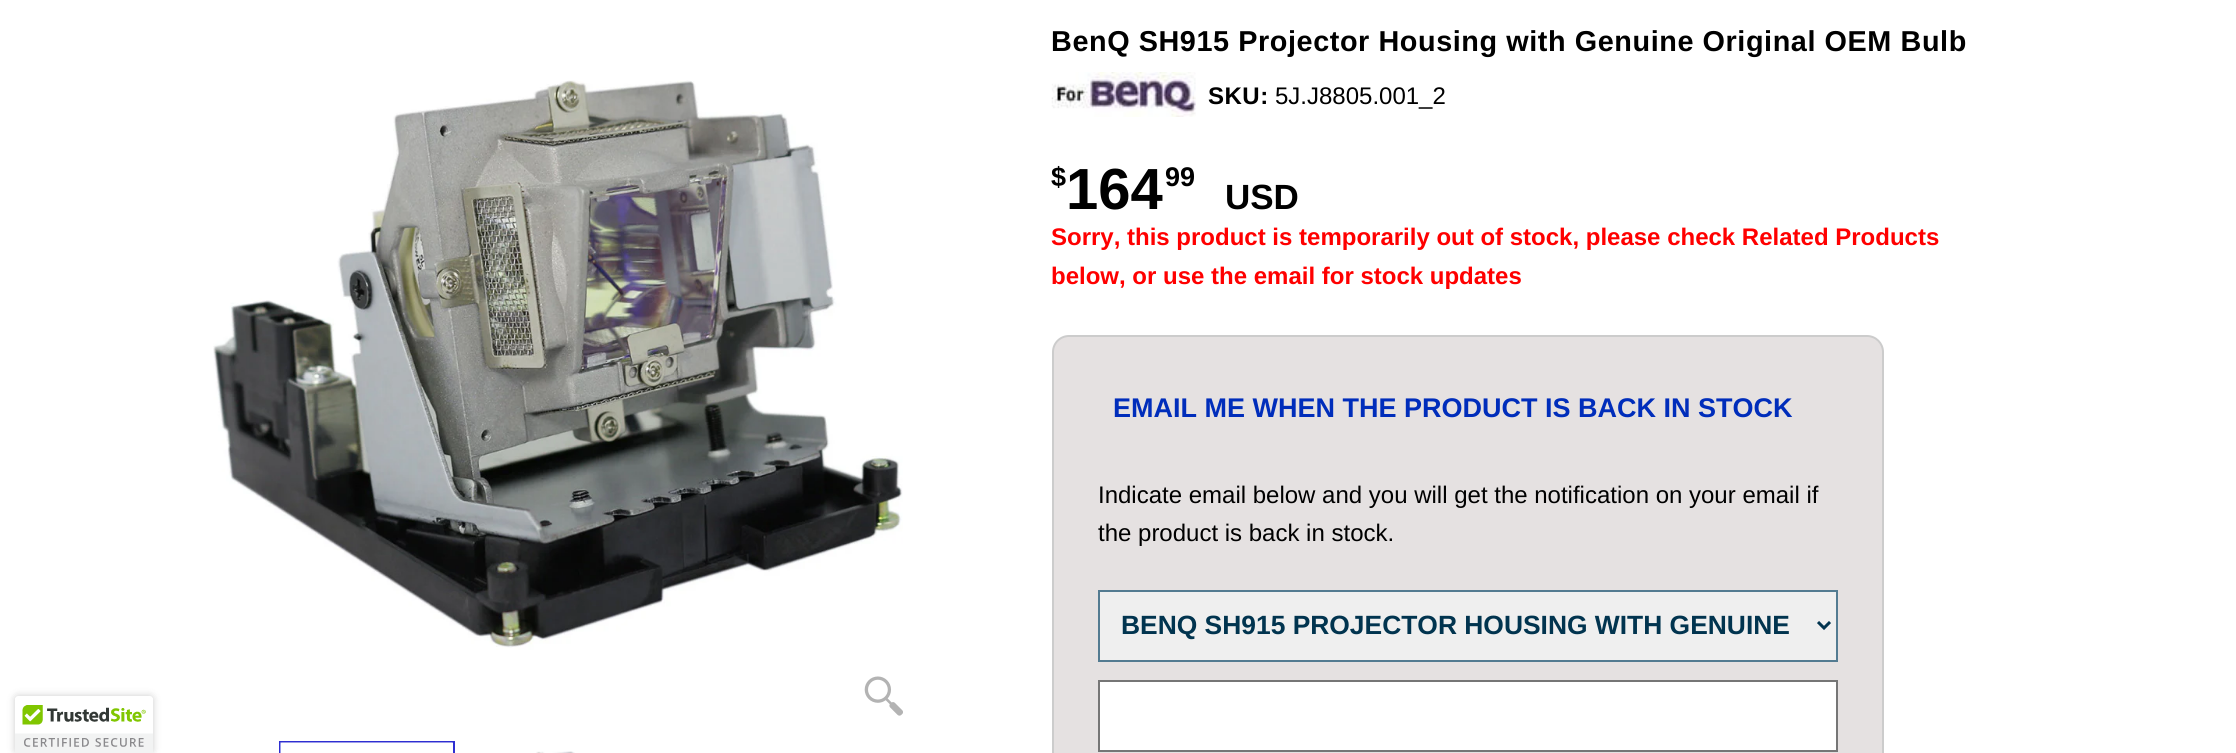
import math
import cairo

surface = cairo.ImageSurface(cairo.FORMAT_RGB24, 2236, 753)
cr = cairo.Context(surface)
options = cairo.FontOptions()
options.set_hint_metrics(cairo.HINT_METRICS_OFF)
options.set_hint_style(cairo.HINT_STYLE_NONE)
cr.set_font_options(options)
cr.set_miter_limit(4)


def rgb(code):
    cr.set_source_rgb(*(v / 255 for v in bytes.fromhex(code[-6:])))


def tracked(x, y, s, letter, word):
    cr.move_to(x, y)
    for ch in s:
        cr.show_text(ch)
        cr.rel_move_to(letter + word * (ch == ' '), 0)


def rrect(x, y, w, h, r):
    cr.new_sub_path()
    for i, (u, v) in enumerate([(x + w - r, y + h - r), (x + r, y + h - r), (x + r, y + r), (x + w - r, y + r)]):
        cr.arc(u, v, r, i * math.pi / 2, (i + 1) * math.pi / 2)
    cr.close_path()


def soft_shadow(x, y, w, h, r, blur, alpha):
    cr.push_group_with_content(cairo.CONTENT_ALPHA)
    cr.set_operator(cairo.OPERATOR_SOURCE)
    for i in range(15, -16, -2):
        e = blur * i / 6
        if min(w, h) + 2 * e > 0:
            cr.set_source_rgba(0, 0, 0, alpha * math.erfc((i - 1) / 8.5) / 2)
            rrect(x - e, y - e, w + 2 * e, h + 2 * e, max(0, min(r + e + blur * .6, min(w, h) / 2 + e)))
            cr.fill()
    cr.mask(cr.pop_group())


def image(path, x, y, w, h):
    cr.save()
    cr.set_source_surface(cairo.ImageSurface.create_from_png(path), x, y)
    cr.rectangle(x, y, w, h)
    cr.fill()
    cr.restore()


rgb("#ffffff")
cr.paint()
image("img/1.png", 213, 80, 690, 570)
image("img/2.png", 864, 676, 39, 40)
cr.rectangle(280, 742, 174, 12)
rgb("#2e2ed1")
cr.stroke()
image("img/3.png", 280, 742, 173, 11)
image("img/4.png", 536, 751, 39, 2)
image("img/5.png", 1051, 72, 145, 45)
rgb("#e5e1e1")
rrect(1053, 336, 830, 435, 16)
cr.fill_preserve()
rgb("#cccccc")
cr.stroke()
rgb("#efefef")
cr.rectangle(1099, 591, 738, 70)
cr.fill_preserve()
rgb("#537b91")
cr.stroke()
cr.new_path()
cr.move_to(1818, 622)
cr.line_to(1824, 628)
cr.line_to(1830, 622)
rgb("#01344f")
cr.set_line_width(3)
cr.stroke()
rgb("#ffffff")
cr.rectangle(1099, 681, 738, 70)
cr.fill_preserve()
rgb("#767676")
cr.set_line_width(2)
cr.stroke()
rgb("#000000")
soft_shadow(15, 696, 138, 57, 3, 4, 0.2)
rgb("#ffffff")
cr.new_path()
cr.move_to(18, 696)
cr.line_to(150, 696)
cr.curve_to(151.5, 696, 153, 697.5, 153, 699)
cr.line_to(153, 753)
cr.line_to(15, 753)
cr.line_to(15, 699)
cr.curve_to(15, 697.5, 16.5, 696, 18, 696)
cr.close_path()
cr.fill()
image("img/6.png", 15, 697, 138, 56)
cr.select_font_face("Liberation Sans", cairo.FONT_SLANT_NORMAL, cairo.FONT_WEIGHT_BOLD)
cr.set_font_size(28.8)
rgb("#000000")
tracked(1051, 51, "BenQ SH915 Projector Housing with Genuine Original OEM Bulb", 0.58, 0)
cr.set_font_size(24)
tracked(1208, 104, "SKU:", 0.5, 0)
cr.select_font_face("Liberation Sans")
cr.move_to(1275, 104)
cr.show_text("5J.J8805.001_2")
cr.select_font_face("Liberation Sans", cairo.FONT_SLANT_NORMAL, cairo.FONT_WEIGHT_BOLD)
cr.set_font_size(27)
cr.move_to(1051, 186)
cr.show_text("$")
cr.set_font_size(58)
cr.move_to(1066, 209)
cr.show_text("164")
cr.set_font_size(27)
cr.move_to(1165, 186)
cr.show_text("99")
cr.set_font_size(35)
cr.move_to(1225, 209)
cr.show_text("USD")
cr.set_font_size(24)
rgb("#ff0000")
cr.move_to(1051, 245)
cr.show_text("Sorry, this product is temporarily out of stock, please check Related Products")
cr.move_to(1051, 284)
cr.show_text("below, or use the email for stock updates")
cr.set_font_size(27)
rgb("#002dbb")
cr.move_to(1113, 417)
cr.show_text("EMAIL ME WHEN THE PRODUCT IS BACK IN STOCK")
cr.select_font_face("Liberation Sans")
cr.set_font_size(24)
rgb("#000000")
cr.move_to(1098, 503)
cr.show_text("Indicate email below and you will get the notification on your email if")
cr.move_to(1098, 541)
cr.show_text("the product is back in stock.")
cr.select_font_face("Liberation Sans", cairo.FONT_SLANT_NORMAL, cairo.FONT_WEIGHT_BOLD)
cr.set_font_size(26.4)
rgb("#01344f")
cr.move_to(1121, 634)
cr.show_text("BENQ SH915 PROJECTOR HOUSING WITH GENUINE")
surface.write_to_png("page.png")
